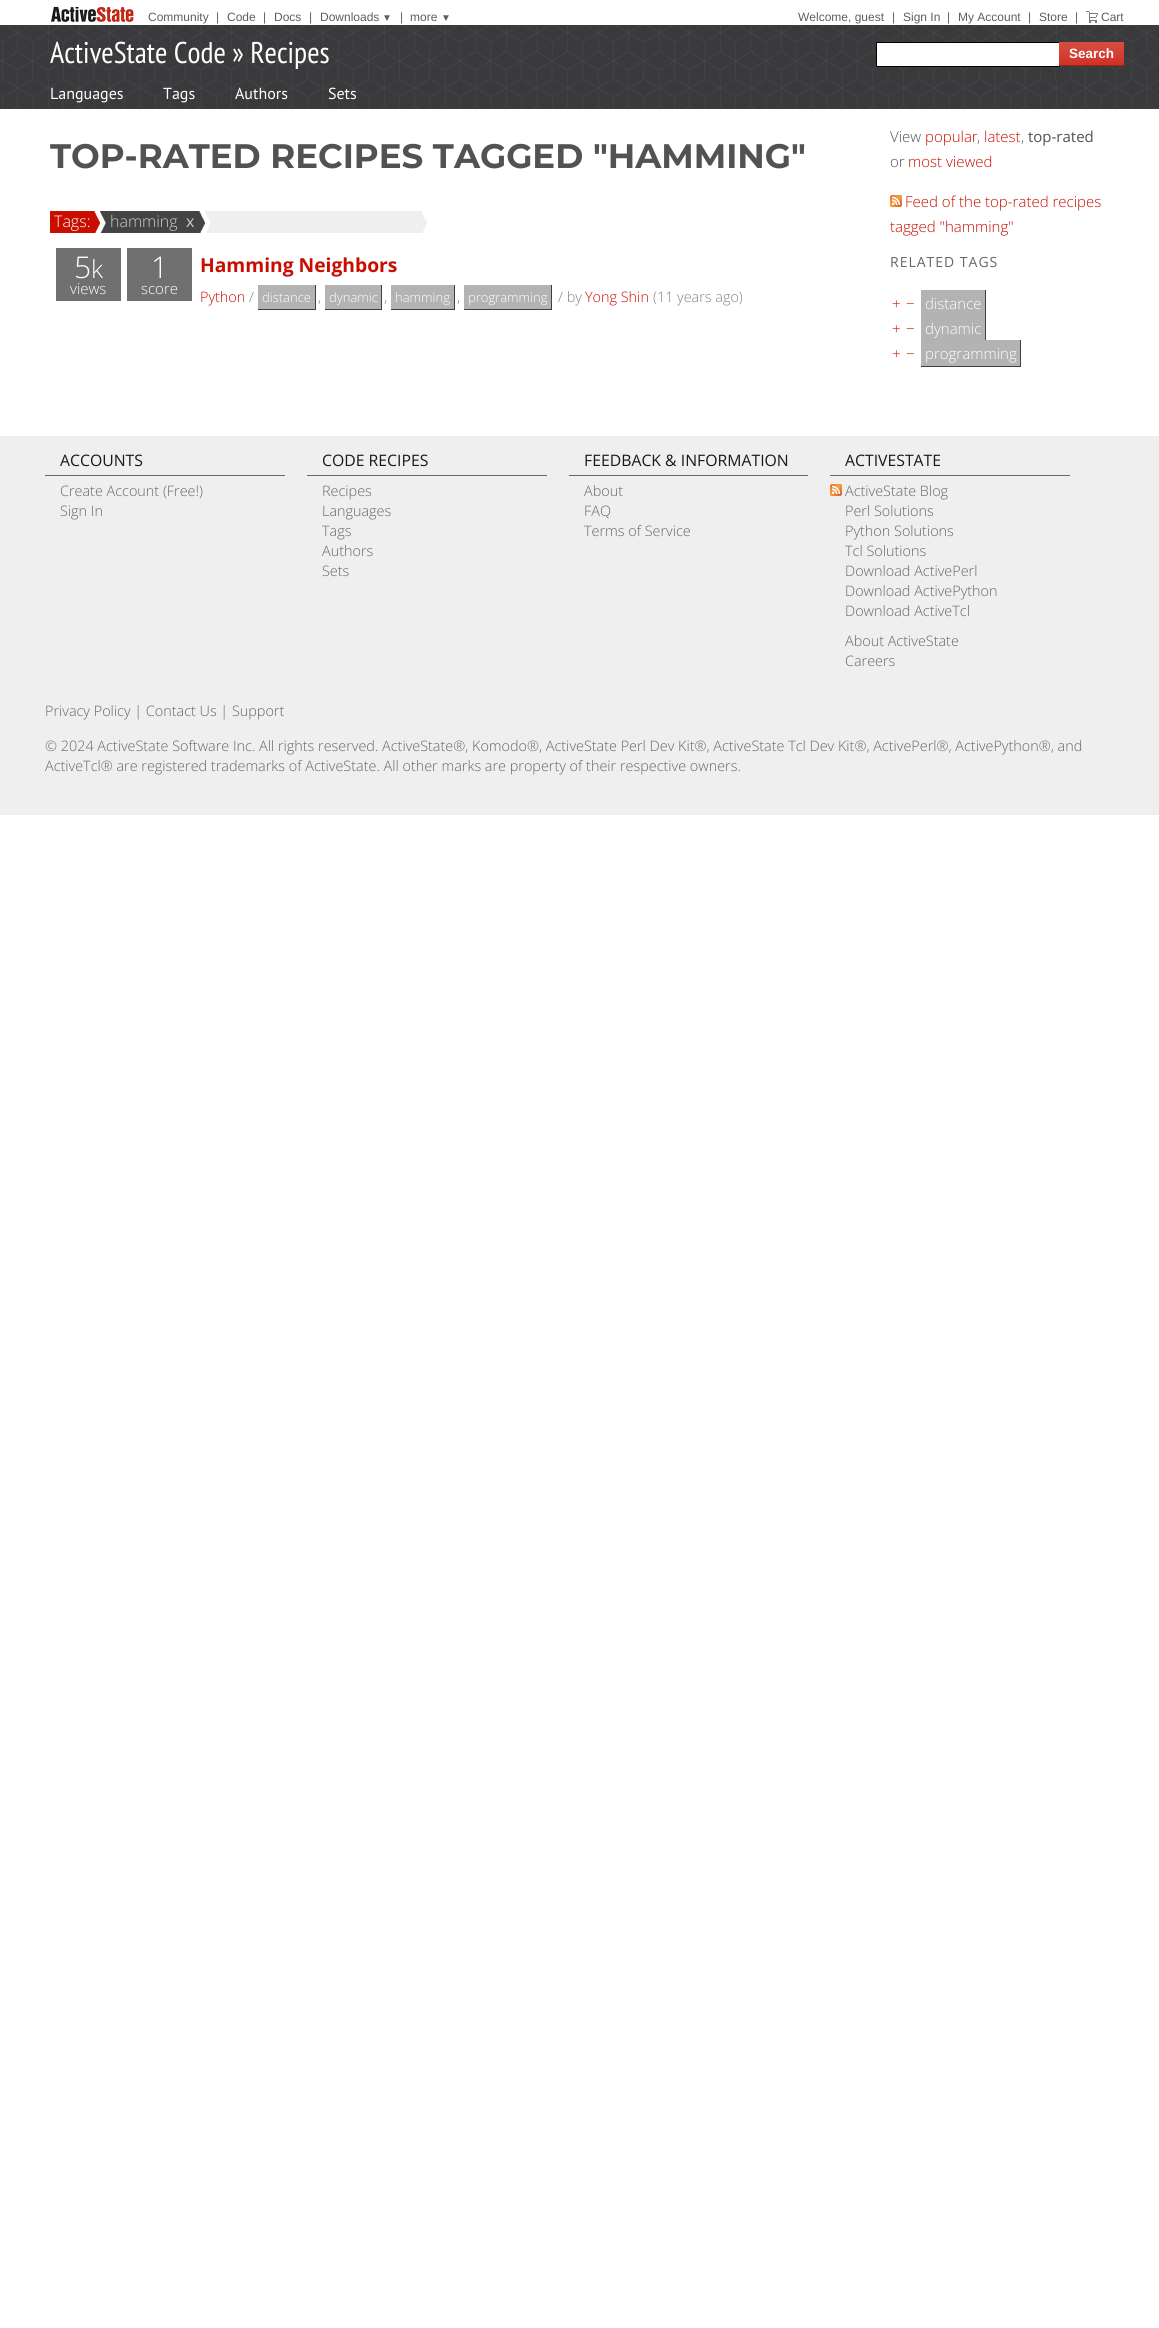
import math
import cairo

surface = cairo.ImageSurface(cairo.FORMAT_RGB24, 1159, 2328)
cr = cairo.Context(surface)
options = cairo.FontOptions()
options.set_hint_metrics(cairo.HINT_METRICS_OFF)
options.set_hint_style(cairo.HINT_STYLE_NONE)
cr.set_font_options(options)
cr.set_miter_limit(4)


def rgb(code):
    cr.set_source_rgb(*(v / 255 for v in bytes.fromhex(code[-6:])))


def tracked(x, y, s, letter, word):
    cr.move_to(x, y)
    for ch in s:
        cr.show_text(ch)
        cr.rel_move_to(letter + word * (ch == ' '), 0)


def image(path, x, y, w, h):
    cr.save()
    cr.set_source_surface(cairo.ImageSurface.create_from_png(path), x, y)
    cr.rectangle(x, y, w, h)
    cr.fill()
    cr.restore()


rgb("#ffffff")
cr.paint()
image("img/1.png", 0, 25, 1159, 84)
image("img/2.png", 51, 6, 83, 16)
image("img/3.png", 1086, 11, 12, 12)
rgb("#ffffff")
cr.rectangle(876.5, 42.5, 183, 24)
cr.fill_preserve()
rgb("#000000")
cr.set_line_width(1)
cr.stroke()
rgb("#c90e00")
cr.rectangle(1059, 42, 65, 23)
cr.fill()
image("img/4.png", 1059, 42, 65, 23)
rgb("#9c231a")
cr.rectangle(1059, 65, 65, 1)
cr.fill()
rgb("#c90e00")
cr.rectangle(50, 211, 50, 22)
cr.fill()
image("img/5.png", 94, 211, 6, 22)
rgb("#444444")
cr.rectangle(100, 211, 105, 22)
cr.fill()
image("img/6.png", 100, 211, 6, 22)
image("img/7.png", 199, 211, 6, 22)
rgb("#efefef")
cr.rectangle(205, 211, 222, 22)
cr.fill()
image("img/8.png", 205, 212, 6, 21)
image("img/9.png", 421, 211, 6, 22)
for x, y, w, h, color in [
    (56, 248, 65, 53, "#707070"),
    (127, 248, 65, 53, "#707070"),
    (258, 285, 57, 24, "#b3b3b3"),
    (315, 285, 1, 25, "#404041"),
    (258, 309, 58, 1, "#404041"),
    (325, 285, 56, 24, "#b3b3b3"),
    (381, 285, 1, 25, "#404041"),
    (325, 309, 57, 1, "#404041"),
    (391, 285, 63, 24, "#b3b3b3"),
    (454, 285, 1, 25, "#404041"),
    (391, 309, 64, 1, "#404041"),
    (464, 285, 87, 24, "#b3b3b3"),
    (551, 285, 1, 25, "#404041"),
    (464, 309, 88, 1, "#404041"),
]:
    rgb(color)
    cr.rectangle(x, y, w, h)
    cr.fill()
image("img/10.png", 890, 195, 12, 12)
for x, y, w, h, color in [
    (921, 290, 64, 50, "#b3b3b3"),
    (985, 290, 1, 52, "#404041"),
    (921, 340, 99, 26, "#b3b3b3"),
    (1020, 340, 1, 27, "#404041"),
    (921, 366, 100, 1, "#404041"),
    (0, 436, 1159, 379, "#efefef"),
    (45, 475, 240, 1, "#666666"),
    (307, 475, 240, 1, "#666666"),
    (569, 475, 239, 1, "#666666"),
    (830, 475, 240, 1, "#666666"),
]:
    rgb(color)
    cr.rectangle(x, y, w, h)
    cr.fill()
image("img/11.png", 830, 484, 12, 12)
cr.select_font_face("Liberation Sans")
cr.set_font_size(12)
rgb("#5e5e5e")
for x, y, s in [
    (148, 21, "Community"),
    (216, 21, "|"),
    (227, 21, "Code"),
    (263, 21, "|"),
    (274, 21, "Docs"),
    (309, 21, "|"),
    (320, 21, "Downloads"),
]:
    cr.move_to(x, y)
    cr.show_text(s)
cr.set_font_size(10)
cr.move_to(382, 21)
cr.show_text("▼")
cr.set_font_size(12)
cr.move_to(400, 21)
cr.show_text("|")
cr.move_to(410, 21)
cr.show_text("more")
cr.set_font_size(10)
cr.move_to(441, 21)
cr.show_text("▼")
cr.set_font_size(12)
for x, y, s in [
    (798, 21, "Welcome, guest"),
    (892, 21, "|"),
    (903, 21, "Sign In"),
    (947, 21, "|"),
    (958, 21, "My Account"),
    (1028, 21, "|"),
    (1039, 21, "Store"),
    (1075, 21, "|"),
    (1101, 21, "Cart"),
]:
    cr.move_to(x, y)
    cr.show_text(s)
cr.select_font_face("PT Sans Narrow")
cr.set_font_size(30)
rgb("#ffffff")
cr.move_to(50, 63)
cr.show_text("ActiveState Code » Recipes")
cr.select_font_face("Liberation Sans", cairo.FONT_SLANT_NORMAL, cairo.FONT_WEIGHT_BOLD)
cr.set_font_size(13.5)
cr.move_to(1069, 58)
cr.show_text("Search")
cr.select_font_face("PT Sans")
cr.set_font_size(16)
for x, y, s in [
    (50, 99, "Languages"),
    (163, 99, "Tags"),
    (235, 99, "Authors"),
    (328, 99, "Sets"),
]:
    cr.move_to(x, y)
    cr.show_text(s)
cr.select_font_face("Montserrat", cairo.FONT_SLANT_NORMAL, cairo.FONT_WEIGHT_BOLD)
cr.set_font_size(34)
rgb("#525252")
cr.move_to(50, 168)
cr.show_text("TOP-RATED RECIPES TAGGED \"HAMMING\"")
cr.select_font_face("Open Sans Light")
cr.set_font_size(16)
rgb("#ffffff")
cr.move_to(54, 227)
cr.show_text("Tags:")
rgb("#cccccc")
cr.move_to(110, 227)
cr.show_text("hamming")
cr.select_font_face("Open Sans")
cr.move_to(186, 227)
cr.show_text("x")
cr.select_font_face("Open Sans Light")
cr.set_font_size(30)
rgb("#ffffff")
cr.move_to(74, 278)
cr.show_text("5")
cr.set_font_size(25)
cr.move_to(91, 278)
cr.show_text("k")
cr.set_font_size(15)
cr.move_to(70, 294)
cr.show_text("views")
cr.set_font_size(30)
cr.move_to(151, 278)
cr.show_text("1")
cr.set_font_size(15)
cr.move_to(141, 294)
cr.show_text("score")
cr.select_font_face("Open Sans", cairo.FONT_SLANT_NORMAL, cairo.FONT_WEIGHT_BOLD)
cr.set_font_size(19.25)
rgb("#c90e00")
cr.move_to(200, 272)
cr.show_text("Hamming Neighbors")
cr.select_font_face("Open Sans Light")
cr.set_font_size(14.4)
cr.move_to(200, 302)
cr.show_text("Python")
rgb("#808080")
cr.move_to(249, 302)
cr.show_text("/")
cr.set_font_size(13)
rgb("#ffffff")
cr.move_to(262, 302)
cr.show_text("distance")
cr.set_font_size(14.4)
rgb("#808080")
cr.move_to(318, 302)
cr.show_text(",")
cr.set_font_size(13)
rgb("#ffffff")
cr.move_to(329, 302)
cr.show_text("dynamic")
cr.set_font_size(14.4)
rgb("#808080")
cr.move_to(384, 302)
cr.show_text(",")
cr.set_font_size(13)
rgb("#ffffff")
cr.move_to(395, 302)
cr.show_text("hamming")
cr.set_font_size(14.4)
rgb("#808080")
cr.move_to(457, 302)
cr.show_text(",")
cr.set_font_size(13)
rgb("#ffffff")
cr.move_to(468, 302)
cr.show_text("programming")
cr.set_font_size(14.4)
rgb("#808080")
cr.move_to(558, 302)
cr.show_text("/ by")
rgb("#c90e00")
cr.move_to(585, 302)
cr.show_text("Yong Shin")
rgb("#808080")
cr.move_to(653, 302)
cr.show_text("(11 years ago)")
cr.set_font_size(15)
rgb("#525252")
cr.move_to(890, 142)
cr.show_text("View")
rgb("#c90e00")
cr.move_to(925, 142)
cr.show_text("popular")
rgb("#525252")
cr.move_to(977, 142)
cr.show_text(",")
rgb("#c90e00")
cr.move_to(984, 142)
cr.show_text("latest")
rgb("#525252")
cr.move_to(1021, 142)
cr.show_text(",")
cr.select_font_face("Open Sans")
cr.move_to(1028, 142)
cr.show_text("top-rated")
cr.select_font_face("Open Sans Light")
cr.move_to(890, 167)
cr.show_text("or")
rgb("#c90e00")
for x, y, s in [
    (908, 167, "most viewed"),
    (905, 207, "Feed of the top-rated recipes"),
    (890, 232, "tagged \"hamming\""),
]:
    cr.move_to(x, y)
    cr.show_text(s)
cr.select_font_face("Open Sans")
cr.set_font_size(14)
rgb("#666666")
tracked(890, 267, "RELATED TAGS", 1, 0)
cr.select_font_face("Open Sans Light")
cr.set_font_size(15)
rgb("#c90e00")
cr.move_to(892, 309)
cr.show_text("+")
cr.move_to(906, 309)
cr.show_text("−")
rgb("#ffffff")
cr.move_to(925, 309)
cr.show_text("distance")
rgb("#c90e00")
cr.move_to(892, 334)
cr.show_text("+")
cr.move_to(906, 334)
cr.show_text("−")
rgb("#ffffff")
cr.move_to(925, 334)
cr.show_text("dynamic")
rgb("#c90e00")
cr.move_to(892, 359)
cr.show_text("+")
cr.move_to(906, 359)
cr.show_text("−")
rgb("#ffffff")
cr.move_to(925, 359)
cr.show_text("programming")
cr.select_font_face("Open Sans")
cr.set_font_size(15.8)
rgb("#191919")
cr.move_to(60, 466)
cr.show_text("ACCOUNTS")
cr.select_font_face("Open Sans Light")
cr.set_font_size(14.4)
rgb("#666666")
cr.move_to(60, 496)
cr.show_text("Create Account (Free!)")
cr.move_to(60, 516)
cr.show_text("Sign In")
cr.select_font_face("Open Sans")
cr.set_font_size(15.8)
rgb("#191919")
cr.move_to(322, 466)
cr.show_text("CODE RECIPES")
cr.select_font_face("Open Sans Light")
cr.set_font_size(14.4)
rgb("#666666")
for x, y, s in [
    (322, 496, "Recipes"),
    (322, 516, "Languages"),
    (322, 536, "Tags"),
    (322, 556, "Authors"),
    (322, 576, "Sets"),
]:
    cr.move_to(x, y)
    cr.show_text(s)
cr.select_font_face("Open Sans")
cr.set_font_size(15.8)
rgb("#191919")
cr.move_to(584, 466)
cr.show_text("FEEDBACK & INFORMATION")
cr.select_font_face("Open Sans Light")
cr.set_font_size(14.4)
rgb("#666666")
for x, y, s in [
    (584, 496, "About"),
    (584, 516, "FAQ"),
    (584, 536, "Terms of Service"),
]:
    cr.move_to(x, y)
    cr.show_text(s)
cr.select_font_face("Open Sans")
cr.set_font_size(15.8)
rgb("#191919")
cr.move_to(845, 466)
cr.show_text("ACTIVESTATE")
cr.select_font_face("Open Sans Light")
cr.set_font_size(14.4)
rgb("#666666")
for x, y, s in [
    (845, 496, "ActiveState Blog"),
    (845, 516, "Perl Solutions"),
    (845, 536, "Python Solutions"),
    (845, 556, "Tcl Solutions"),
    (845, 576, "Download ActivePerl"),
    (845, 596, "Download ActivePython"),
    (845, 616, "Download ActiveTcl"),
    (845, 646, "About ActiveState"),
    (845, 666, "Careers"),
    (45, 716, "Privacy Policy | Contact Us | Support"),
    (45, 751, "© 2024 ActiveState Software Inc. All rights reserved. ActiveState®, Komodo®, ActiveState Perl Dev Kit®, ActiveState Tcl Dev Kit®, ActivePerl®, ActivePython®, and"),
    (45, 771, "ActiveTcl® are registered trademarks of ActiveState. All other marks are property of their respective owners."),
]:
    cr.move_to(x, y)
    cr.show_text(s)
surface.write_to_png("page.png")
